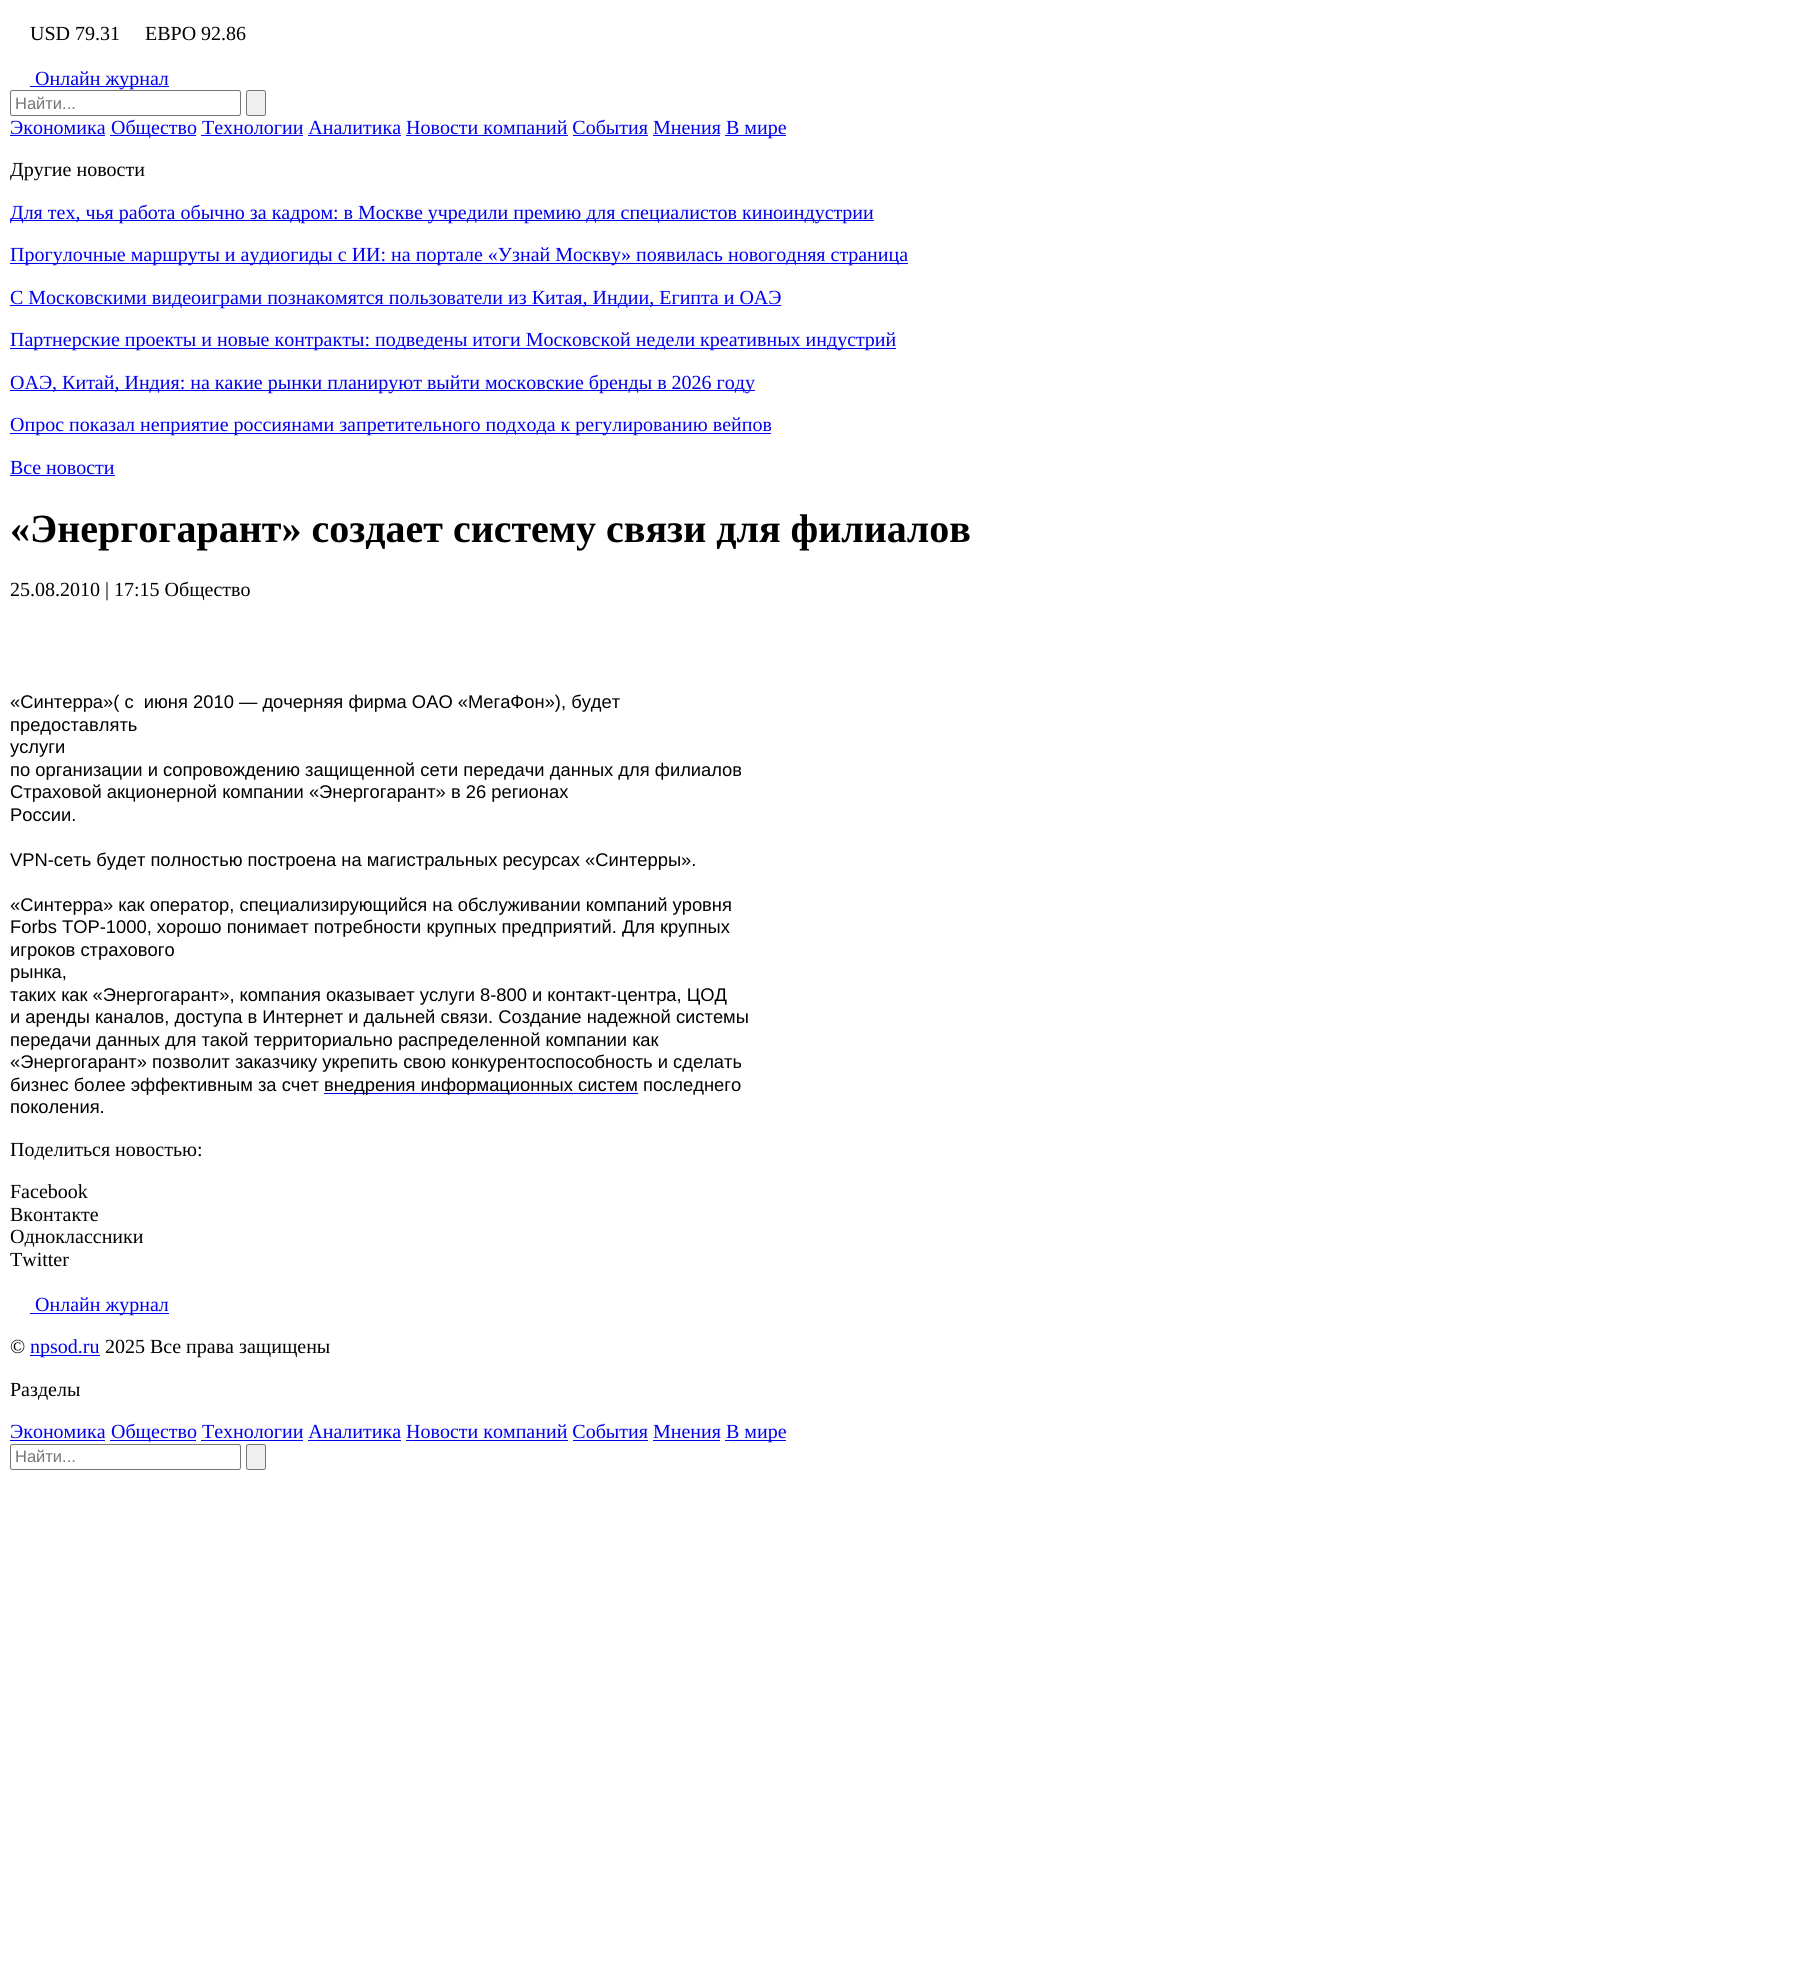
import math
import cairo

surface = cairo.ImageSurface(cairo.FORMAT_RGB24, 1819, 1982)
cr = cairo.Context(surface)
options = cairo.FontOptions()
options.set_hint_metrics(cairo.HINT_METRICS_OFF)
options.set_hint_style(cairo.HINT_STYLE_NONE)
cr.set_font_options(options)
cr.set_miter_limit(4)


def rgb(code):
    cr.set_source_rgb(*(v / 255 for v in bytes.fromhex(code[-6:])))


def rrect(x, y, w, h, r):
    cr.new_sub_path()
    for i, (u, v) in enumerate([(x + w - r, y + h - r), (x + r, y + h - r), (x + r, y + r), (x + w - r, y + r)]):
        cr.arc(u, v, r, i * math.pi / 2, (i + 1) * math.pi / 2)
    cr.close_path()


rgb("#ffffff")
cr.paint()
rgb("#0000ee")
cr.rectangle(30, 86, 139, 1)
cr.fill()
rrect(10.5, 90.5, 230, 25, 2)
rgb("#767676")
cr.set_line_width(1)
cr.stroke()
rgb("#efefef")
rrect(246.5, 90.5, 19, 25, 2)
cr.fill_preserve()
rgb("#767676")
cr.stroke()
for x, y, w, h, color in [
    (10, 135, 95, 1, "#0000ee"),
    (110, 135, 86, 1, "#0000ee"),
    (725, 135, 61, 1, "#0000ee"),
    (201, 135, 102, 1, "#0000ee"),
    (308, 135, 93, 1, "#0000ee"),
    (406, 135, 162, 1, "#0000ee"),
    (573, 135, 75, 1, "#0000ee"),
    (653, 135, 67, 1, "#0000ee"),
    (10, 220, 864, 1, "#0000ee"),
    (10, 263, 898, 1, "#0000ee"),
    (10, 305, 771, 1, "#0000ee"),
    (10, 348, 886, 1, "#0000ee"),
    (10, 390, 745, 1, "#0000ee"),
    (10, 433, 761, 1, "#0000ee"),
    (10, 475, 105, 1, "#0000ee"),
    (324, 1093, 314, 1, "#0000ee"),
    (30, 1313, 139, 1, "#0000ee"),
    (30, 1355, 70, 1, "#0000ee"),
    (10, 1440, 95, 1, "#0000ee"),
    (110, 1440, 86, 1, "#0000ee"),
    (725, 1440, 61, 1, "#0000ee"),
    (201, 1440, 102, 1, "#0000ee"),
    (308, 1440, 93, 1, "#0000ee"),
    (406, 1440, 162, 1, "#0000ee"),
    (573, 1440, 75, 1, "#0000ee"),
    (653, 1440, 67, 1, "#0000ee"),
]:
    rgb(color)
    cr.rectangle(x, y, w, h)
    cr.fill()
rrect(10.5, 1444.5, 230, 25, 2)
rgb("#767676")
cr.stroke()
rgb("#efefef")
rrect(246.5, 1444.5, 19, 25, 2)
cr.fill_preserve()
rgb("#767676")
cr.stroke()
cr.select_font_face("Liberation Serif")
cr.set_font_size(20)
rgb("#000000")
cr.move_to(30, 40)
cr.show_text("USD 79.31")
cr.move_to(145, 40)
cr.show_text("ЕВРО 92.86")
rgb("#0000ee")
cr.move_to(35, 85)
cr.show_text("Онлайн журнал")
cr.select_font_face("Liberation Sans")
cr.set_font_size(16.5)
rgb("#757575")
cr.move_to(15, 109)
cr.show_text("Найти...")
cr.select_font_face("Liberation Serif")
cr.set_font_size(20)
rgb("#0000ee")
for x, y, s in [
    (10, 134, "Экономика"),
    (111, 134, "Общество Технологии Аналитика Новости компаний События Мнения"),
    (726, 134, "В мире"),
]:
    cr.move_to(x, y)
    cr.show_text(s)
rgb("#000000")
cr.move_to(10, 176)
cr.show_text("Другие новости")
rgb("#0000ee")
for x, y, s in [
    (10, 219, "Для тех, чья работа обычно за кадром: в Москве учредили премию для специалистов киноиндустрии"),
    (10, 261, "Прогулочные маршруты и аудиогиды с ИИ: на портале «Узнай Москву» появилась новогодняя страница"),
    (10, 304, "С Московскими видеоиграми познакомятся пользователи из Китая, Индии, Египта и ОАЭ"),
    (10, 346, "Партнерские проекты и новые контракты: подведены итоги Московской недели креативных индустрий"),
    (10, 389, "ОАЭ, Китай, Индия: на какие рынки планируют выйти московские бренды в 2026 году"),
    (10, 431, "Опрос показал неприятие россиянами запретительного подхода к регулированию вейпов"),
    (10, 474, "Все новости"),
]:
    cr.move_to(x, y)
    cr.show_text(s)
cr.select_font_face("Liberation Serif", cairo.FONT_SLANT_NORMAL, cairo.FONT_WEIGHT_BOLD)
cr.set_font_size(40)
rgb("#000000")
cr.move_to(10, 542)
cr.show_text("«Энергогарант» создает систему связи для филиалов")
cr.select_font_face("Liberation Serif")
cr.set_font_size(20)
cr.move_to(10, 596)
cr.show_text("25.08.2010 | 17:15 Общество")
cr.select_font_face("Liberation Sans")
cr.set_font_size(18.35)
for x, y, s in [
    (10, 708, "«Синтерра»( с  июня 2010 — дочерняя фирма ОАО «МегаФон»), будет"),
    (10, 731, "предоставлять"),
    (10, 753, "услуги"),
    (10, 776, "по организации и сопровождению защищенной сети передачи данных для филиалов"),
    (10, 798, "Страховой акционерной компании «Энергогарант» в 26 регионах"),
    (10, 821, "России."),
    (10, 866, "VPN-сеть будет полностью построена на магистральных ресурсах «Синтерры»."),
    (10, 911, "«Синтерра» как оператор, специализирующийся на обслуживании компаний уровня"),
    (10, 933, "Forbs TOP-1000, хорошо понимает потребности крупных предприятий. Для крупных"),
    (10, 956, "игроков страхового"),
    (10, 978, "рынка,"),
    (10, 1001, "таких как «Энергогарант», компания оказывает услуги 8-800 и контакт-центра, ЦОД"),
    (10, 1023, "и аренды каналов, доступа в Интернет и дальней связи. Создание надежной системы"),
    (10, 1046, "передачи данных для такой территориально распределенной компании как"),
    (10, 1068, "«Энергогарант» позволит заказчику укрепить свою конкурентоспособность и сделать"),
    (10, 1091, "бизнес более эффективным за счет"),
    (324, 1091, "внедрения информационных систем последнего"),
    (10, 1113, "поколения."),
]:
    cr.move_to(x, y)
    cr.show_text(s)
cr.select_font_face("Liberation Serif")
cr.set_font_size(20)
for x, y, s in [
    (10, 1156, "Поделиться новостью:"),
    (10, 1198, "Facebook"),
    (10, 1221, "Вконтакте"),
    (10, 1243, "Одноклассники"),
    (10, 1266, "Twitter"),
]:
    cr.move_to(x, y)
    cr.show_text(s)
rgb("#0000ee")
cr.move_to(35, 1311)
cr.show_text("Онлайн журнал")
rgb("#000000")
cr.move_to(10, 1353)
cr.show_text("©")
rgb("#0000ee")
cr.move_to(30, 1353)
cr.show_text("npsod.ru")
rgb("#000000")
cr.move_to(105, 1353)
cr.show_text("2025 Все права защищены")
cr.move_to(10, 1396)
cr.show_text("Разделы")
rgb("#0000ee")
for x, y, s in [
    (10, 1438, "Экономика"),
    (111, 1438, "Общество Технологии Аналитика Новости компаний События Мнения"),
    (726, 1438, "В мире"),
]:
    cr.move_to(x, y)
    cr.show_text(s)
cr.select_font_face("Liberation Sans")
cr.set_font_size(16.5)
rgb("#757575")
cr.move_to(15, 1462)
cr.show_text("Найти...")
surface.write_to_png("page.png")
